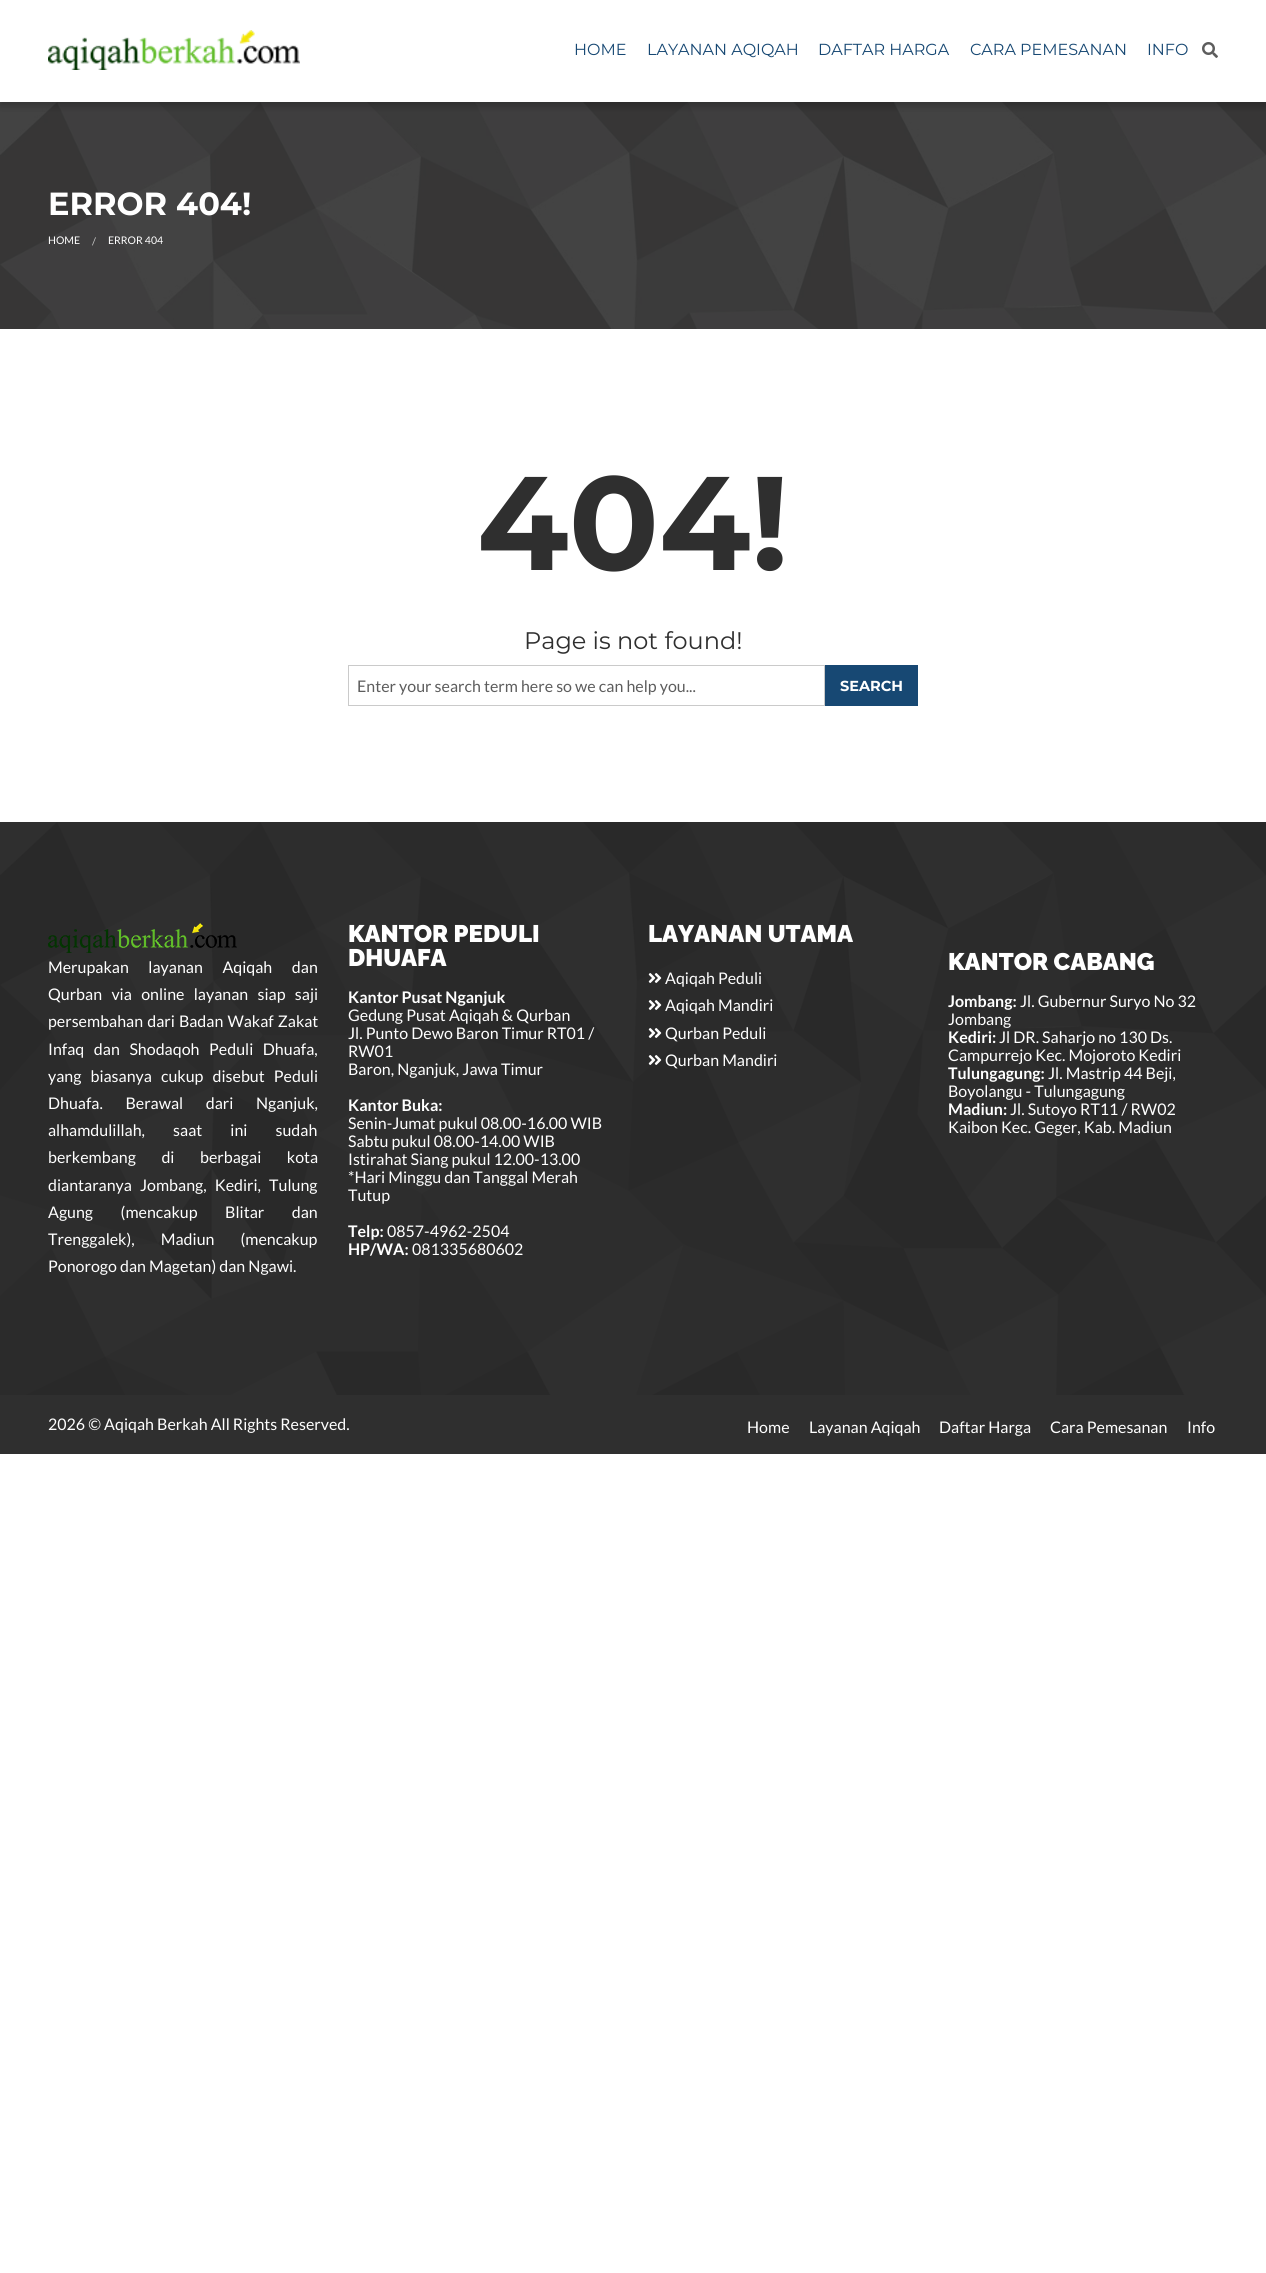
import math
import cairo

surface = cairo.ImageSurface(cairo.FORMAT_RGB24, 1266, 2273)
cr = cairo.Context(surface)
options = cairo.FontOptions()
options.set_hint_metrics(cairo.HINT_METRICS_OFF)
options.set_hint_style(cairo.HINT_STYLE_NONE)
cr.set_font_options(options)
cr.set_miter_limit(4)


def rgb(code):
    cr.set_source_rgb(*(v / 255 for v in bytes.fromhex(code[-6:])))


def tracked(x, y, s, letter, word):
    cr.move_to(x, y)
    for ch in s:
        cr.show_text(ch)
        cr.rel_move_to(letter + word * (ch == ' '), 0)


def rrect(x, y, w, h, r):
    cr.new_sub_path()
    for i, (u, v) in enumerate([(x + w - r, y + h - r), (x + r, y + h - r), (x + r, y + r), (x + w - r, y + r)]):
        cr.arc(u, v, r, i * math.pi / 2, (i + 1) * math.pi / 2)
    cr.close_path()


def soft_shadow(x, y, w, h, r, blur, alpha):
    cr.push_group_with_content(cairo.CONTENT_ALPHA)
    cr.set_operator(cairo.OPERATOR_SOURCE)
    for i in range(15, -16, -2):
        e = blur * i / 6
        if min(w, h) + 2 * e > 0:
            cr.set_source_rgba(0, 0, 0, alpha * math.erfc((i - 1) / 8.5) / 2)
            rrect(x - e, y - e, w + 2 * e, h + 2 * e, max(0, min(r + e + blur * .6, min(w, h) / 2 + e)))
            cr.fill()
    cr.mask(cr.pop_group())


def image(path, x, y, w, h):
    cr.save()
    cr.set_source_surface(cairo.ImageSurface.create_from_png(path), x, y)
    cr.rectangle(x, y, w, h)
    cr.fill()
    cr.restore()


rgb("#ffffff")
cr.paint()
image("img/3.png", 0, 102, 1266, 227)
cr.save()
cr.rectangle(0, 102, 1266, 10)
cr.clip()
rgb("#000000")
soft_shadow(0, 4, 1266, 102, 0, 4.5, 0.24)
cr.restore()
image("img/1.png", 48, 30, 252, 40)
image("img/2.png", 1202, 42, 16, 16)
cr.rectangle(348.5, 665.5, 476, 40)
rgb("#cacaca")
cr.set_line_width(1)
cr.stroke()
rgb("#174873")
cr.rectangle(825, 665, 93, 41)
cr.fill()
image("img/4.png", 0, 822, 1266, 573)
image("img/5.png", 48, 923, 189, 30)
image("img/6.png", 648, 973, 14, 10)
image("img/7.png", 648, 1000, 14, 10)
image("img/7.png", 648, 1028, 14, 10)
image("img/8.png", 648, 1055, 14, 10)
rgb("#2f2f2f")
cr.rectangle(0, 1395, 1266, 59)
cr.fill()
cr.select_font_face("Montserrat")
cr.set_font_size(16)
rgb("#174873")
for x, y, s in [
    (574, 55, "HOME"),
    (647, 55, "LAYANAN AQIQAH"),
    (818, 55, "DAFTAR HARGA"),
    (970, 55, "CARA PEMESANAN"),
    (1147, 55, "INFO"),
]:
    cr.move_to(x, y)
    cr.show_text(s)
cr.select_font_face("Montserrat", cairo.FONT_SLANT_NORMAL, cairo.FONT_WEIGHT_BOLD)
cr.set_font_size(32)
rgb("#ffffff")
cr.move_to(48, 215)
cr.show_text("ERROR 404!")
cr.select_font_face("Lato")
cr.set_font_size(10.5)
cr.move_to(48, 244)
cr.show_text("HOME")
rgb("#cacaca")
cr.move_to(92, 245)
cr.show_text("/")
rgb("#ffffff")
cr.move_to(108, 244)
cr.show_text("ERROR 404")
cr.select_font_face("Montserrat", cairo.FONT_SLANT_NORMAL, cairo.FONT_WEIGHT_BOLD)
cr.set_font_size(133)
rgb("#2f2f2f")
cr.move_to(477, 570)
cr.show_text("404!")
cr.select_font_face("Montserrat")
cr.set_font_size(24)
cr.move_to(524, 649)
cr.show_text("Page is not found!")
cr.select_font_face("Lato")
cr.set_font_size(16)
rgb("#5d5d5d")
cr.move_to(357, 692)
cr.show_text("Enter your search term here so we can help you...")
cr.select_font_face("Montserrat", cairo.FONT_SLANT_NORMAL, cairo.FONT_WEIGHT_BOLD)
cr.set_font_size(14.5)
rgb("#ffffff")
cr.move_to(840, 691)
cr.show_text("SEARCH")
cr.select_font_face("Lato")
cr.set_font_size(16)
tracked(48, 973, "Merupakan layanan Aqiqah dan", 0, 16.5)
tracked(48, 1000, "Qurban via online layanan siap saji", 0, 6.25)
tracked(48, 1027, "persembahan dari Badan Wakaf Zakat", 0, 1)
tracked(48, 1055, "Infaq dan Shodaqoh Peduli Dhuafa,", 0, 6.5)
tracked(48, 1082, "yang biasanya cukup disebut Peduli", 0, 6)
tracked(48, 1109, "Dhuafa. Berawal dari Nganjuk,", 0, 19.5)
tracked(48, 1136, "alhamdulillah, saat ini sudah", 0, 25)
tracked(48, 1163, "berkembang di berbagai kota", 0, 22.5)
tracked(48, 1191, "diantaranya Jombang, Kediri, Tulung", 0, 5)
tracked(48, 1218, "Agung (mencakup Blitar dan", 0, 24.5)
tracked(48, 1245, "Trenggalek), Madiun (mencakup", 0, 23)
cr.move_to(48, 1272)
cr.show_text("Ponorogo dan Magetan) dan Ngawi.")
cr.select_font_face("Raleway Black")
cr.set_font_size(24)
cr.move_to(348, 942)
cr.show_text("KANTOR PEDULI")
cr.move_to(348, 966)
cr.show_text("DHUAFA")
cr.select_font_face("Lato", cairo.FONT_SLANT_NORMAL, cairo.FONT_WEIGHT_BOLD)
cr.set_font_size(16)
cr.move_to(348, 1003)
cr.show_text("Kantor Pusat Nganjuk")
cr.select_font_face("Lato")
for x, y, s in [
    (348, 1021, "Gedung Pusat Aqiqah & Qurban"),
    (348, 1039, "Jl. Punto Dewo Baron Timur RT01 /"),
    (348, 1057, "RW01"),
    (348, 1075, "Baron, Nganjuk, Jawa Timur"),
]:
    cr.move_to(x, y)
    cr.show_text(s)
cr.select_font_face("Lato", cairo.FONT_SLANT_NORMAL, cairo.FONT_WEIGHT_BOLD)
cr.move_to(348, 1111)
cr.show_text("Kantor Buka:")
cr.select_font_face("Lato")
for x, y, s in [
    (348, 1129, "Senin-Jumat pukul 08.00-16.00 WIB"),
    (348, 1147, "Sabtu pukul 08.00-14.00 WIB"),
    (348, 1165, "Istirahat Siang pukul 12.00-13.00"),
    (348, 1183, "*Hari Minggu dan Tanggal Merah"),
    (348, 1201, "Tutup"),
]:
    cr.move_to(x, y)
    cr.show_text(s)
cr.select_font_face("Lato", cairo.FONT_SLANT_NORMAL, cairo.FONT_WEIGHT_BOLD)
cr.move_to(348, 1237)
cr.show_text("Telp:")
cr.select_font_face("Lato")
cr.move_to(387, 1237)
cr.show_text("0857-4962-2504")
cr.select_font_face("Lato", cairo.FONT_SLANT_NORMAL, cairo.FONT_WEIGHT_BOLD)
cr.move_to(348, 1255)
cr.show_text("HP/WA:")
cr.select_font_face("Lato")
cr.move_to(412, 1255)
cr.show_text("081335680602")
cr.select_font_face("Raleway Black")
cr.set_font_size(24)
cr.move_to(648, 942)
cr.show_text("LAYANAN UTAMA")
cr.select_font_face("Lato")
cr.set_font_size(16)
for x, y, s in [
    (665, 984, "Aqiqah Peduli"),
    (665, 1011, "Aqiqah Mandiri"),
    (665, 1039, "Qurban Peduli"),
    (665, 1066, "Qurban Mandiri"),
]:
    cr.move_to(x, y)
    cr.show_text(s)
cr.select_font_face("Raleway Black")
cr.set_font_size(24)
cr.move_to(948, 970)
cr.show_text("KANTOR CABANG")
cr.select_font_face("Lato", cairo.FONT_SLANT_NORMAL, cairo.FONT_WEIGHT_BOLD)
cr.set_font_size(16)
cr.move_to(948, 1007)
cr.show_text("Jombang:")
cr.select_font_face("Lato")
cr.move_to(1020, 1007)
cr.show_text("Jl. Gubernur Suryo No 32")
cr.move_to(948, 1025)
cr.show_text("Jombang")
cr.select_font_face("Lato", cairo.FONT_SLANT_NORMAL, cairo.FONT_WEIGHT_BOLD)
cr.move_to(948, 1043)
cr.show_text("Kediri:")
cr.select_font_face("Lato")
cr.move_to(999, 1043)
cr.show_text("Jl DR. Saharjo no 130 Ds.")
cr.move_to(948, 1061)
cr.show_text("Campurrejo Kec. Mojoroto Kediri")
cr.select_font_face("Lato", cairo.FONT_SLANT_NORMAL, cairo.FONT_WEIGHT_BOLD)
cr.move_to(948, 1079)
cr.show_text("Tulungagung:")
cr.select_font_face("Lato")
cr.move_to(1048, 1079)
cr.show_text("Jl. Mastrip 44 Beji,")
cr.move_to(948, 1097)
cr.show_text("Boyolangu - Tulungagung")
cr.select_font_face("Lato", cairo.FONT_SLANT_NORMAL, cairo.FONT_WEIGHT_BOLD)
cr.move_to(948, 1115)
cr.show_text("Madiun:")
cr.select_font_face("Lato")
for x, y, s in [
    (1010, 1115, "Jl. Sutoyo RT11 / RW02"),
    (948, 1133, "Kaibon Kec. Geger, Kab. Madiun"),
    (48, 1430, "2026 © Aqiqah Berkah All Rights Reserved."),
    (747, 1433, "Home"),
    (809, 1433, "Layanan Aqiqah"),
    (939, 1433, "Daftar Harga"),
    (1050, 1433, "Cara Pemesanan"),
    (1187, 1433, "Info"),
]:
    cr.move_to(x, y)
    cr.show_text(s)
surface.write_to_png("page.png")
